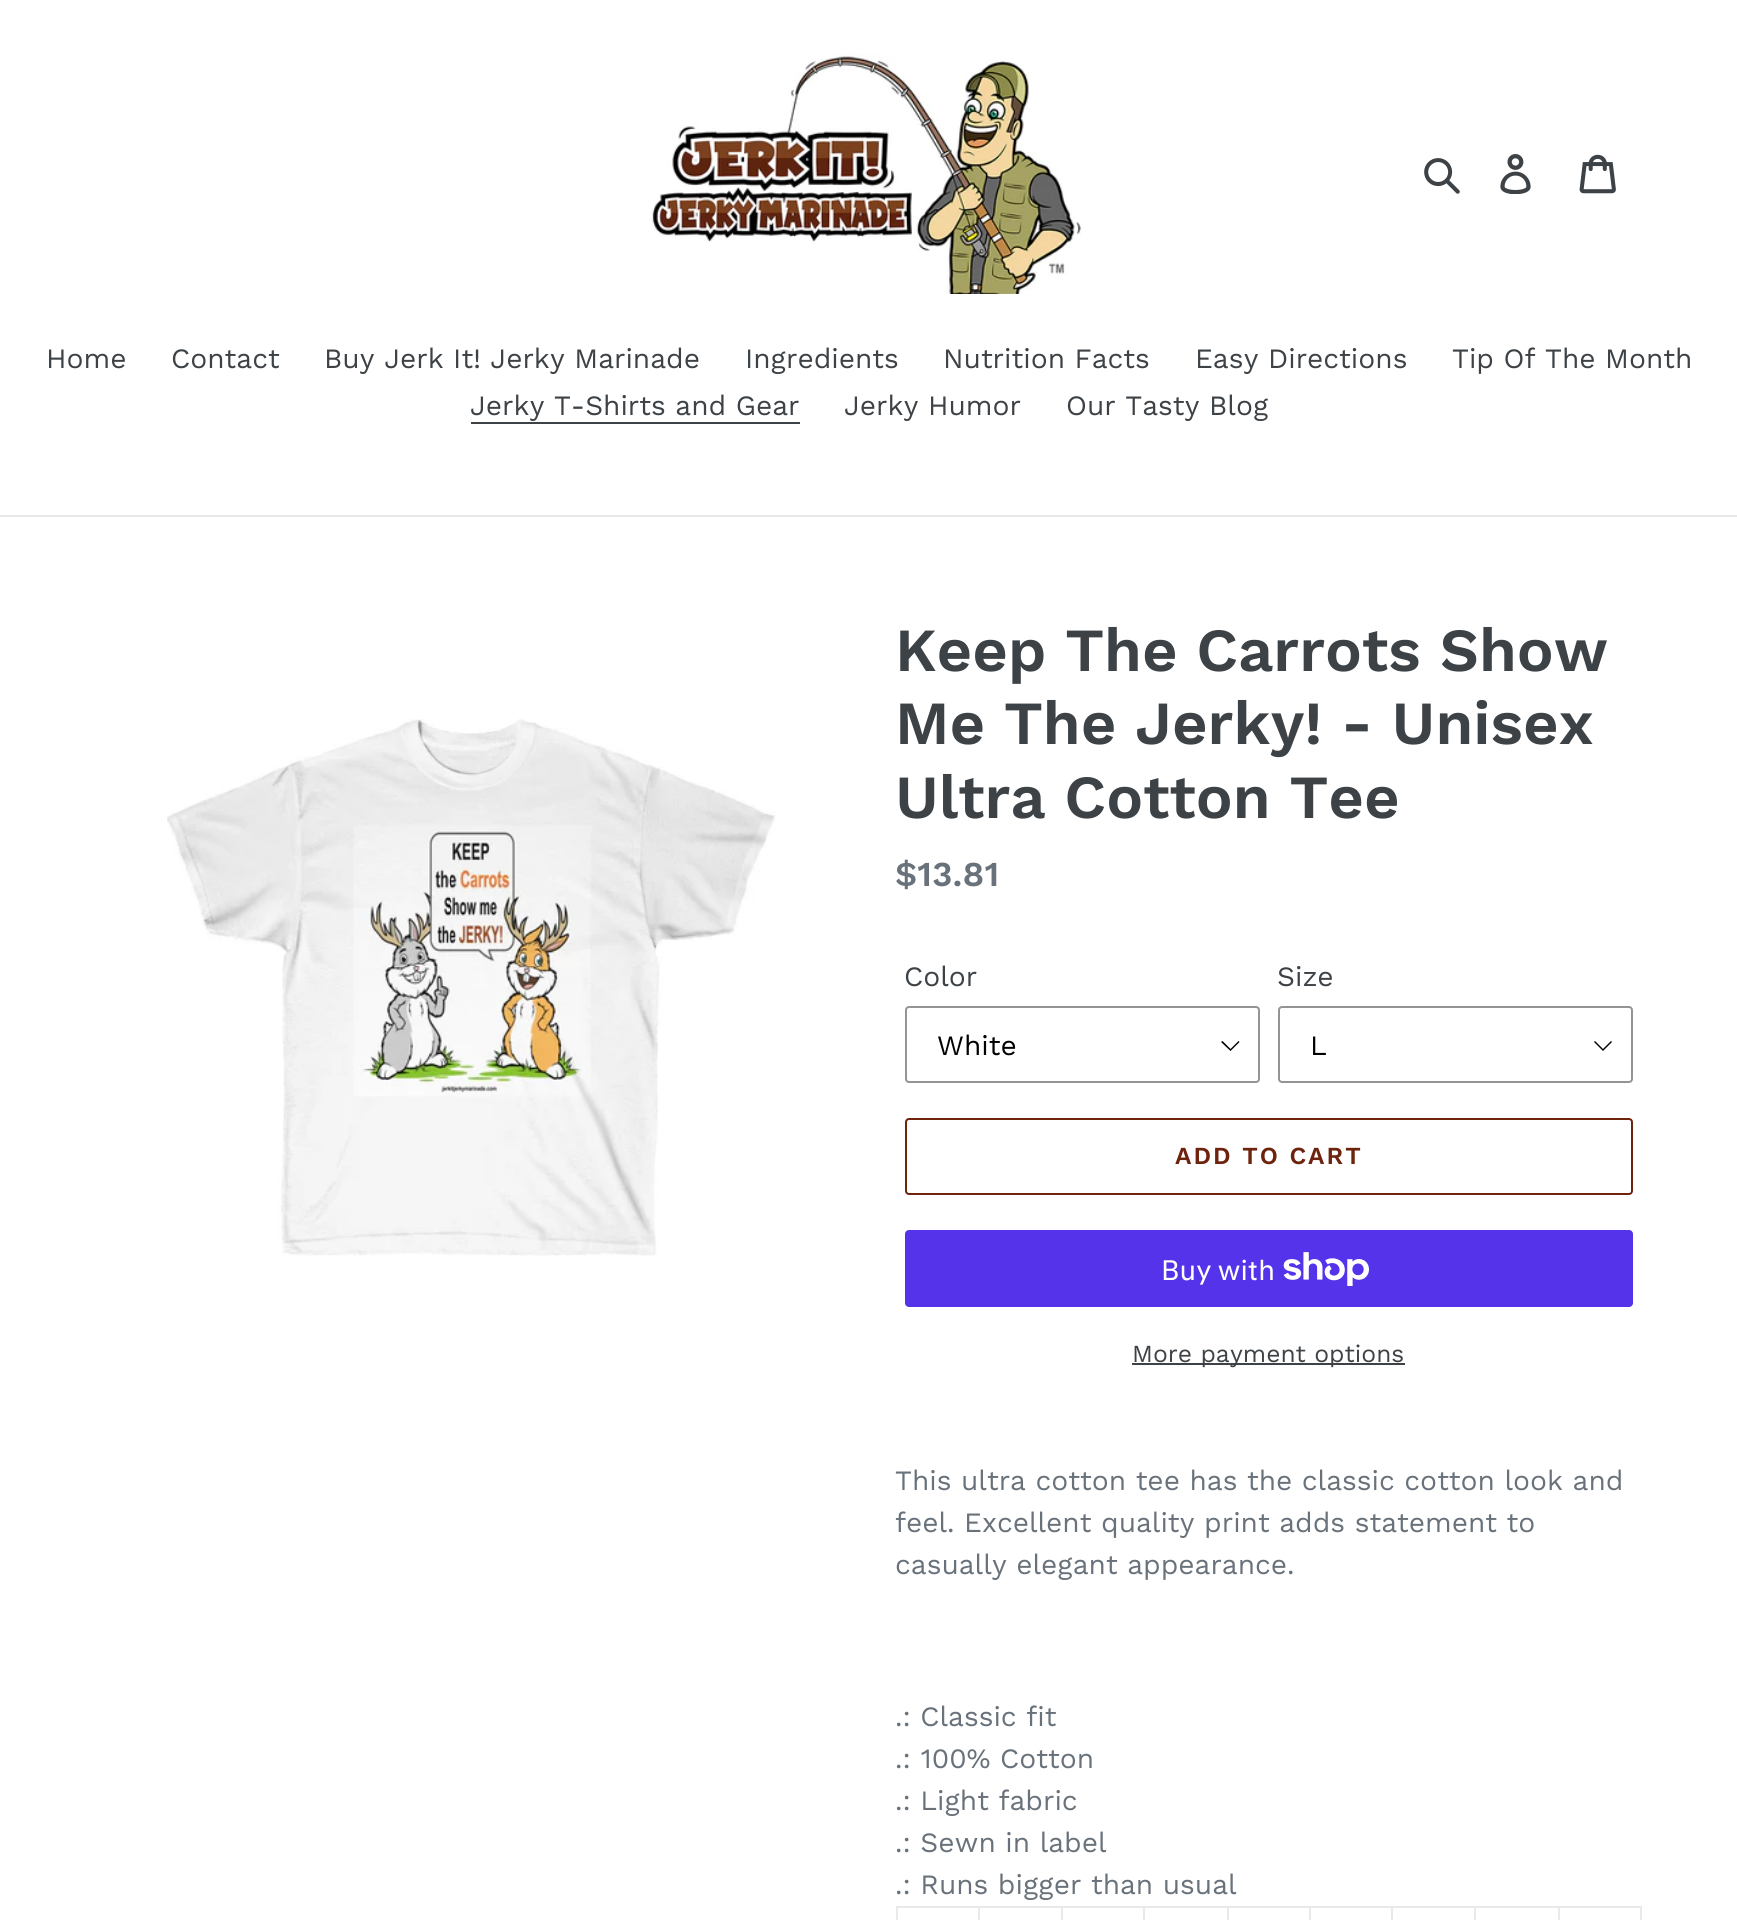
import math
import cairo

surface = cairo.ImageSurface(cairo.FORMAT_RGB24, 1737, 1920)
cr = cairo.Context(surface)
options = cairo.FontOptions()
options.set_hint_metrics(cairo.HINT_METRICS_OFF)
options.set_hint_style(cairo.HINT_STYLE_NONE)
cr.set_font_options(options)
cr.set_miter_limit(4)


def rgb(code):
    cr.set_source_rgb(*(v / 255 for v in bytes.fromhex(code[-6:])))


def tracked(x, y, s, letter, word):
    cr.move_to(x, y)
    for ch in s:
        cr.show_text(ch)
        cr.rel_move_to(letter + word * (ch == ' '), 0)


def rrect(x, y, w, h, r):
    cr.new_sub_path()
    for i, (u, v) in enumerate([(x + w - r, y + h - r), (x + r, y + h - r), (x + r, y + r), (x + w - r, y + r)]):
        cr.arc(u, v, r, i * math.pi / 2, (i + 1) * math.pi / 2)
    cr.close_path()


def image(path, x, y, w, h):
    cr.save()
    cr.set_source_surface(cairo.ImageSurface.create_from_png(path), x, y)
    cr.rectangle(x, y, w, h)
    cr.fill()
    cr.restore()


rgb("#ffffff")
cr.paint()
image("img/1.png", 649, 53, 433, 241)
image("img/2.png", 1424, 158, 36, 36)
image("img/3.png", 1500, 154, 31, 40)
image("img/4.png", 1579, 154, 37, 40)
rgb("#e8e9eb")
cr.rectangle(0, 515, 1737, 2)
cr.fill()
rgb("#3d4246")
cr.rectangle(471, 422, 329, 2)
cr.fill()
image("img/5.png", 167, 719, 609, 537)
rgb("#000000")
cr.new_path()
cr.move_to(1230.5, 1051)
cr.line_to(1221, 1042)
cr.line_to(1222.5, 1041)
cr.line_to(1230.5, 1049)
cr.line_to(1238.5, 1041)
cr.line_to(1239.5, 1042)
cr.close_path()
cr.fill()
rrect(906, 1007, 353, 75, 3)
rgb("#949494")
cr.stroke()
rgb("#000000")
cr.new_path()
cr.move_to(1603, 1051)
cr.line_to(1594, 1042)
cr.line_to(1595, 1041)
cr.line_to(1603, 1049)
cr.line_to(1611, 1041)
cr.line_to(1612, 1042)
cr.close_path()
cr.fill()
rrect(1279, 1007, 353, 75, 3)
rgb("#949494")
cr.stroke()
rrect(906, 1119, 726, 75, 3)
rgb("#6d230c")
cr.stroke()
rgb("#5433eb")
rrect(905, 1230, 728, 77, 4)
cr.fill()
image("img/6.png", 1283, 1252, 86, 34)
for x, y, w, h, color in [
    (1132, 1363, 273, 2, "#3d4246"),
    (1558, 1906, 84, 2, "#e8e9eb"),
    (1558, 1906, 2, 14, "#e8e9eb"),
    (1474, 1906, 85, 2, "#e8e9eb"),
    (1474, 1906, 2, 14, "#e8e9eb"),
    (1391, 1906, 84, 2, "#e8e9eb"),
    (1391, 1906, 2, 14, "#e8e9eb"),
    (1309, 1906, 84, 2, "#e8e9eb"),
    (1309, 1906, 2, 14, "#e8e9eb"),
    (1227, 1906, 84, 2, "#e8e9eb"),
    (1227, 1906, 2, 14, "#e8e9eb"),
    (1143, 1906, 86, 2, "#e8e9eb"),
    (1143, 1906, 2, 14, "#e8e9eb"),
    (1061, 1906, 84, 2, "#e8e9eb"),
    (1061, 1906, 2, 14, "#e8e9eb"),
    (978, 1906, 84, 2, "#e8e9eb"),
    (978, 1906, 2, 14, "#e8e9eb"),
    (896, 1906, 84, 2, "#e8e9eb"),
    (896, 1906, 2, 14, "#e8e9eb"),
    (1640, 1906, 2, 14, "#e8e9eb"),
]:
    rgb(color)
    cr.rectangle(x, y, w, h)
    cr.fill()
cr.select_font_face("Work Sans")
cr.set_font_size(28)
rgb("#3d4246")
for x, y, s in [
    (46, 368, "Home"),
    (171, 368, "Contact"),
    (324, 368, "Buy Jerk It! Jerky Marinade"),
    (745, 368, "Ingredients"),
    (943, 368, "Nutrition Facts"),
    (1195, 368, "Easy Directions"),
    (1452, 368, "Tip Of The Month"),
    (470, 415, "Jerky T-Shirts and Gear"),
    (844, 415, "Jerky Humor"),
    (1066, 415, "Our Tasty Blog"),
]:
    cr.move_to(x, y)
    cr.show_text(s)
cr.select_font_face("Work Sans SemiBold")
cr.set_font_size(61.25)
for x, y, s in [
    (895, 671, "Keep The Carrots Show"),
    (895, 744, "Me The Jerky! - Unisex"),
    (895, 818, "Ultra Cotton Tee"),
]:
    cr.move_to(x, y)
    cr.show_text(s)
cr.set_font_size(35)
rgb("#69727b")
cr.move_to(895, 886)
cr.show_text("$13.81")
cr.select_font_face("Work Sans")
cr.set_font_size(28)
rgb("#3d4246")
cr.move_to(904, 986)
cr.show_text("Color")
rgb("#000000")
cr.move_to(937, 1055)
cr.show_text("White")
rgb("#3d4246")
cr.move_to(1277, 986)
cr.show_text("Size")
rgb("#000000")
cr.move_to(1310, 1055)
cr.show_text("L")
cr.select_font_face("Work Sans SemiBold")
cr.set_font_size(24.5)
rgb("#6d230c")
tracked(1175, 1164, "ADD TO CART", 2, 0)
cr.select_font_face("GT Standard")
cr.set_font_size(28)
rgb("#ffffff")
cr.move_to(1161, 1280)
cr.show_text("Buy with")
cr.select_font_face("Work Sans")
cr.set_font_size(24.5)
rgb("#3d4246")
cr.move_to(1132, 1362)
cr.show_text("More payment options")
cr.set_font_size(28)
rgb("#69727b")
for x, y, s in [
    (895, 1490, "This ultra cotton tee has the classic cotton look and"),
    (895, 1532, "feel. Excellent quality print adds statement to"),
    (895, 1574, "casually elegant appearance."),
    (895, 1726, ".: Classic fit"),
    (895, 1768, ".: 100% Cotton"),
    (895, 1810, ".: Light fabric"),
    (895, 1852, ".: Sewn in label"),
    (895, 1894, ".: Runs bigger than usual"),
]:
    cr.move_to(x, y)
    cr.show_text(s)
surface.write_to_png("page.png")
